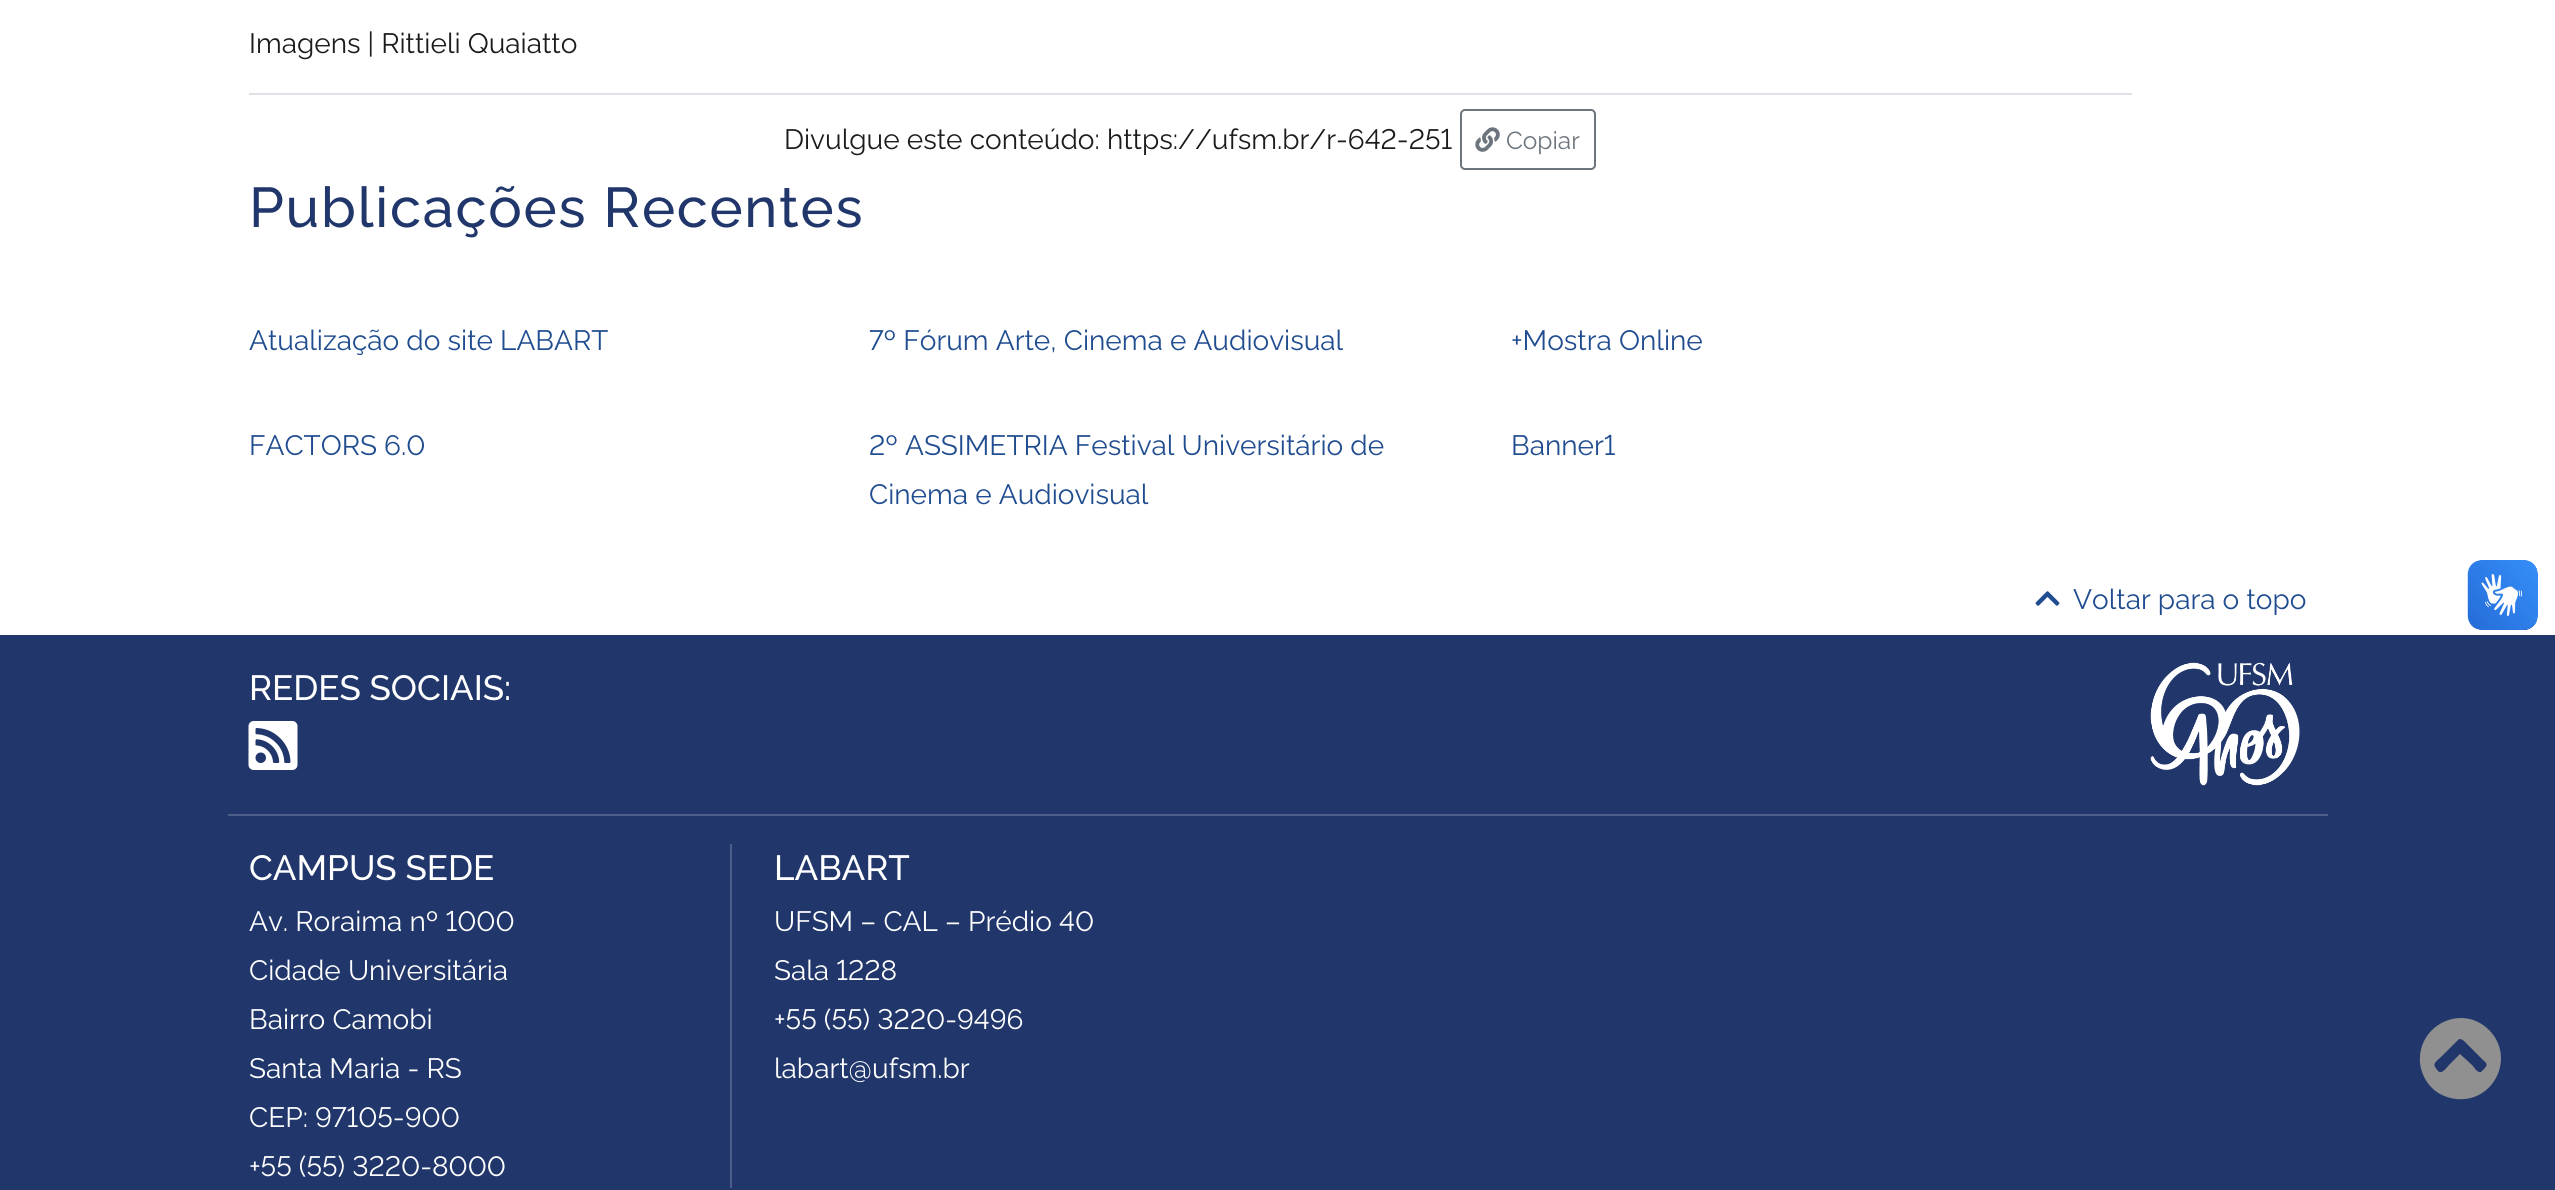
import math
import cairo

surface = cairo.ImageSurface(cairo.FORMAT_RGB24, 2555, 1190)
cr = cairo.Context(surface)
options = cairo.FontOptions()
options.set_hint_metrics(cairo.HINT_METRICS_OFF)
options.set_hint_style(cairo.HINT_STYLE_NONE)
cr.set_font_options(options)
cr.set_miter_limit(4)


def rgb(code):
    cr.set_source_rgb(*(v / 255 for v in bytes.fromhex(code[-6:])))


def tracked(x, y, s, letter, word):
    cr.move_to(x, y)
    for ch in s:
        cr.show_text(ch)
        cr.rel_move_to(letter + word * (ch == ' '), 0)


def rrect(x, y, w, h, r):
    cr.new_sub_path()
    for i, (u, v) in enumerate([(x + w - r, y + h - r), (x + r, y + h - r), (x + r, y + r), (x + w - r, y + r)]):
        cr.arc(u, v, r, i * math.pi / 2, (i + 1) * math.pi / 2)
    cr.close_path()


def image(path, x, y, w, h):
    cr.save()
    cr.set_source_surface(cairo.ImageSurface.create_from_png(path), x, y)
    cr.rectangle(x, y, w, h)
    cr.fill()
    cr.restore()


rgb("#ffffff")
cr.paint()
rgb("#dee2e6")
cr.rectangle(249, 93, 1883, 2)
cr.fill()
rrect(1461, 110, 134, 59, 4)
rgb("#6c757d")
cr.stroke()
image("img/1.png", 1475, 127, 25, 25)
image("img/2.png", 2035, 591, 25, 15)
rgb("#21376b")
cr.rectangle(0, 635, 2555, 555)
cr.fill()
rgb("#909090")
cr.new_path()
cr.move_to(2432, 1088)
cr.curve_to(2425, 1081, 2421, 1072, 2420, 1063)
cr.curve_to(2417, 1025, 2462, 1003, 2489, 1030)
cr.curve_to(2516, 1057, 2494, 1103, 2456, 1099)
cr.curve_to(2447, 1098, 2438, 1094, 2432, 1088)
cr.close_path()
cr.move_to(2458, 1040)
cr.line_to(2443, 1055)
cr.curve_to(2435, 1063, 2431, 1063, 2438, 1071)
cr.curve_to(2442, 1075, 2447, 1067, 2449, 1065)
cr.line_to(2460, 1054)
cr.line_to(2472, 1065)
cr.curve_to(2474, 1067, 2477, 1073, 2481, 1072)
cr.line_to(2484, 1069)
cr.curve_to(2489, 1064, 2486, 1063, 2482, 1059)
cr.line_to(2467, 1044)
cr.curve_to(2465, 1042, 2461, 1037, 2458, 1040)
cr.close_path()
cr.fill()
image("img/3.png", 2467, 560, 71, 70)
image("img/4.png", 2468, 560, 70, 70)
rgb("#4d5f89")
cr.rectangle(228, 814, 2100, 2)
cr.fill()
image("img/5.png", 248, 721, 50, 49)
image("img/6.png", 2150, 662, 150, 124)
cr.rectangle(730, 844, 2, 344)
cr.fill()
cr.select_font_face("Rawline")
cr.set_font_size(28)
rgb("#1c1c1c")
cr.move_to(249, 53)
cr.show_text("Imagens | Rittieli Quaiatto")
cr.move_to(784, 149)
cr.show_text("Divulgue este conteúdo: https://ufsm.br/r-642-251")
cr.set_font_size(24.5)
rgb("#6c757d")
cr.move_to(1506, 149)
cr.show_text("Copiar")
cr.select_font_face("Rawline Medium")
cr.set_font_size(56)
rgb("#21376b")
tracked(249, 227, "Publicações Recentes", 1.75, 0)
cr.select_font_face("Rawline")
cr.set_font_size(28)
rgb("#204c90")
for x, y, s in [
    (249, 350, "Atualização do site LABART"),
    (869, 350, "7º Fórum Arte, Cinema e Audiovisual"),
    (1511, 350, "+Mostra Online"),
    (249, 455, "FACTORS 6.0"),
    (869, 455, "2º ASSIMETRIA Festival Universitário de"),
    (869, 504, "Cinema e Audiovisual"),
    (1511, 455, "Banner1"),
    (2073, 609, "Voltar para o topo"),
]:
    cr.move_to(x, y)
    cr.show_text(s)
cr.select_font_face("Rawline Medium")
cr.set_font_size(35)
rgb("#ffffff")
cr.move_to(249, 700)
cr.show_text("REDES SOCIAIS:")
cr.move_to(249, 880)
cr.show_text("CAMPUS SEDE")
cr.select_font_face("Rawline")
cr.set_font_size(28)
for x, y, s in [
    (249, 931, "Av. Roraima nº 1000"),
    (249, 980, "Cidade Universitária"),
    (249, 1029, "Bairro Camobi"),
    (249, 1078, "Santa Maria - RS"),
    (249, 1127, "CEP: 97105-900"),
    (249, 1176, "+55 (55) 3220-8000"),
]:
    cr.move_to(x, y)
    cr.show_text(s)
cr.select_font_face("Rawline Medium")
cr.set_font_size(35)
cr.move_to(774, 880)
cr.show_text("LABART")
cr.select_font_face("Rawline")
cr.set_font_size(28)
for x, y, s in [
    (774, 931, "UFSM – CAL – Prédio 40"),
    (774, 980, "Sala 1228"),
    (774, 1029, "+55 (55) 3220-9496"),
    (774, 1078, "labart@ufsm.br"),
]:
    cr.move_to(x, y)
    cr.show_text(s)
surface.write_to_png("page.png")
